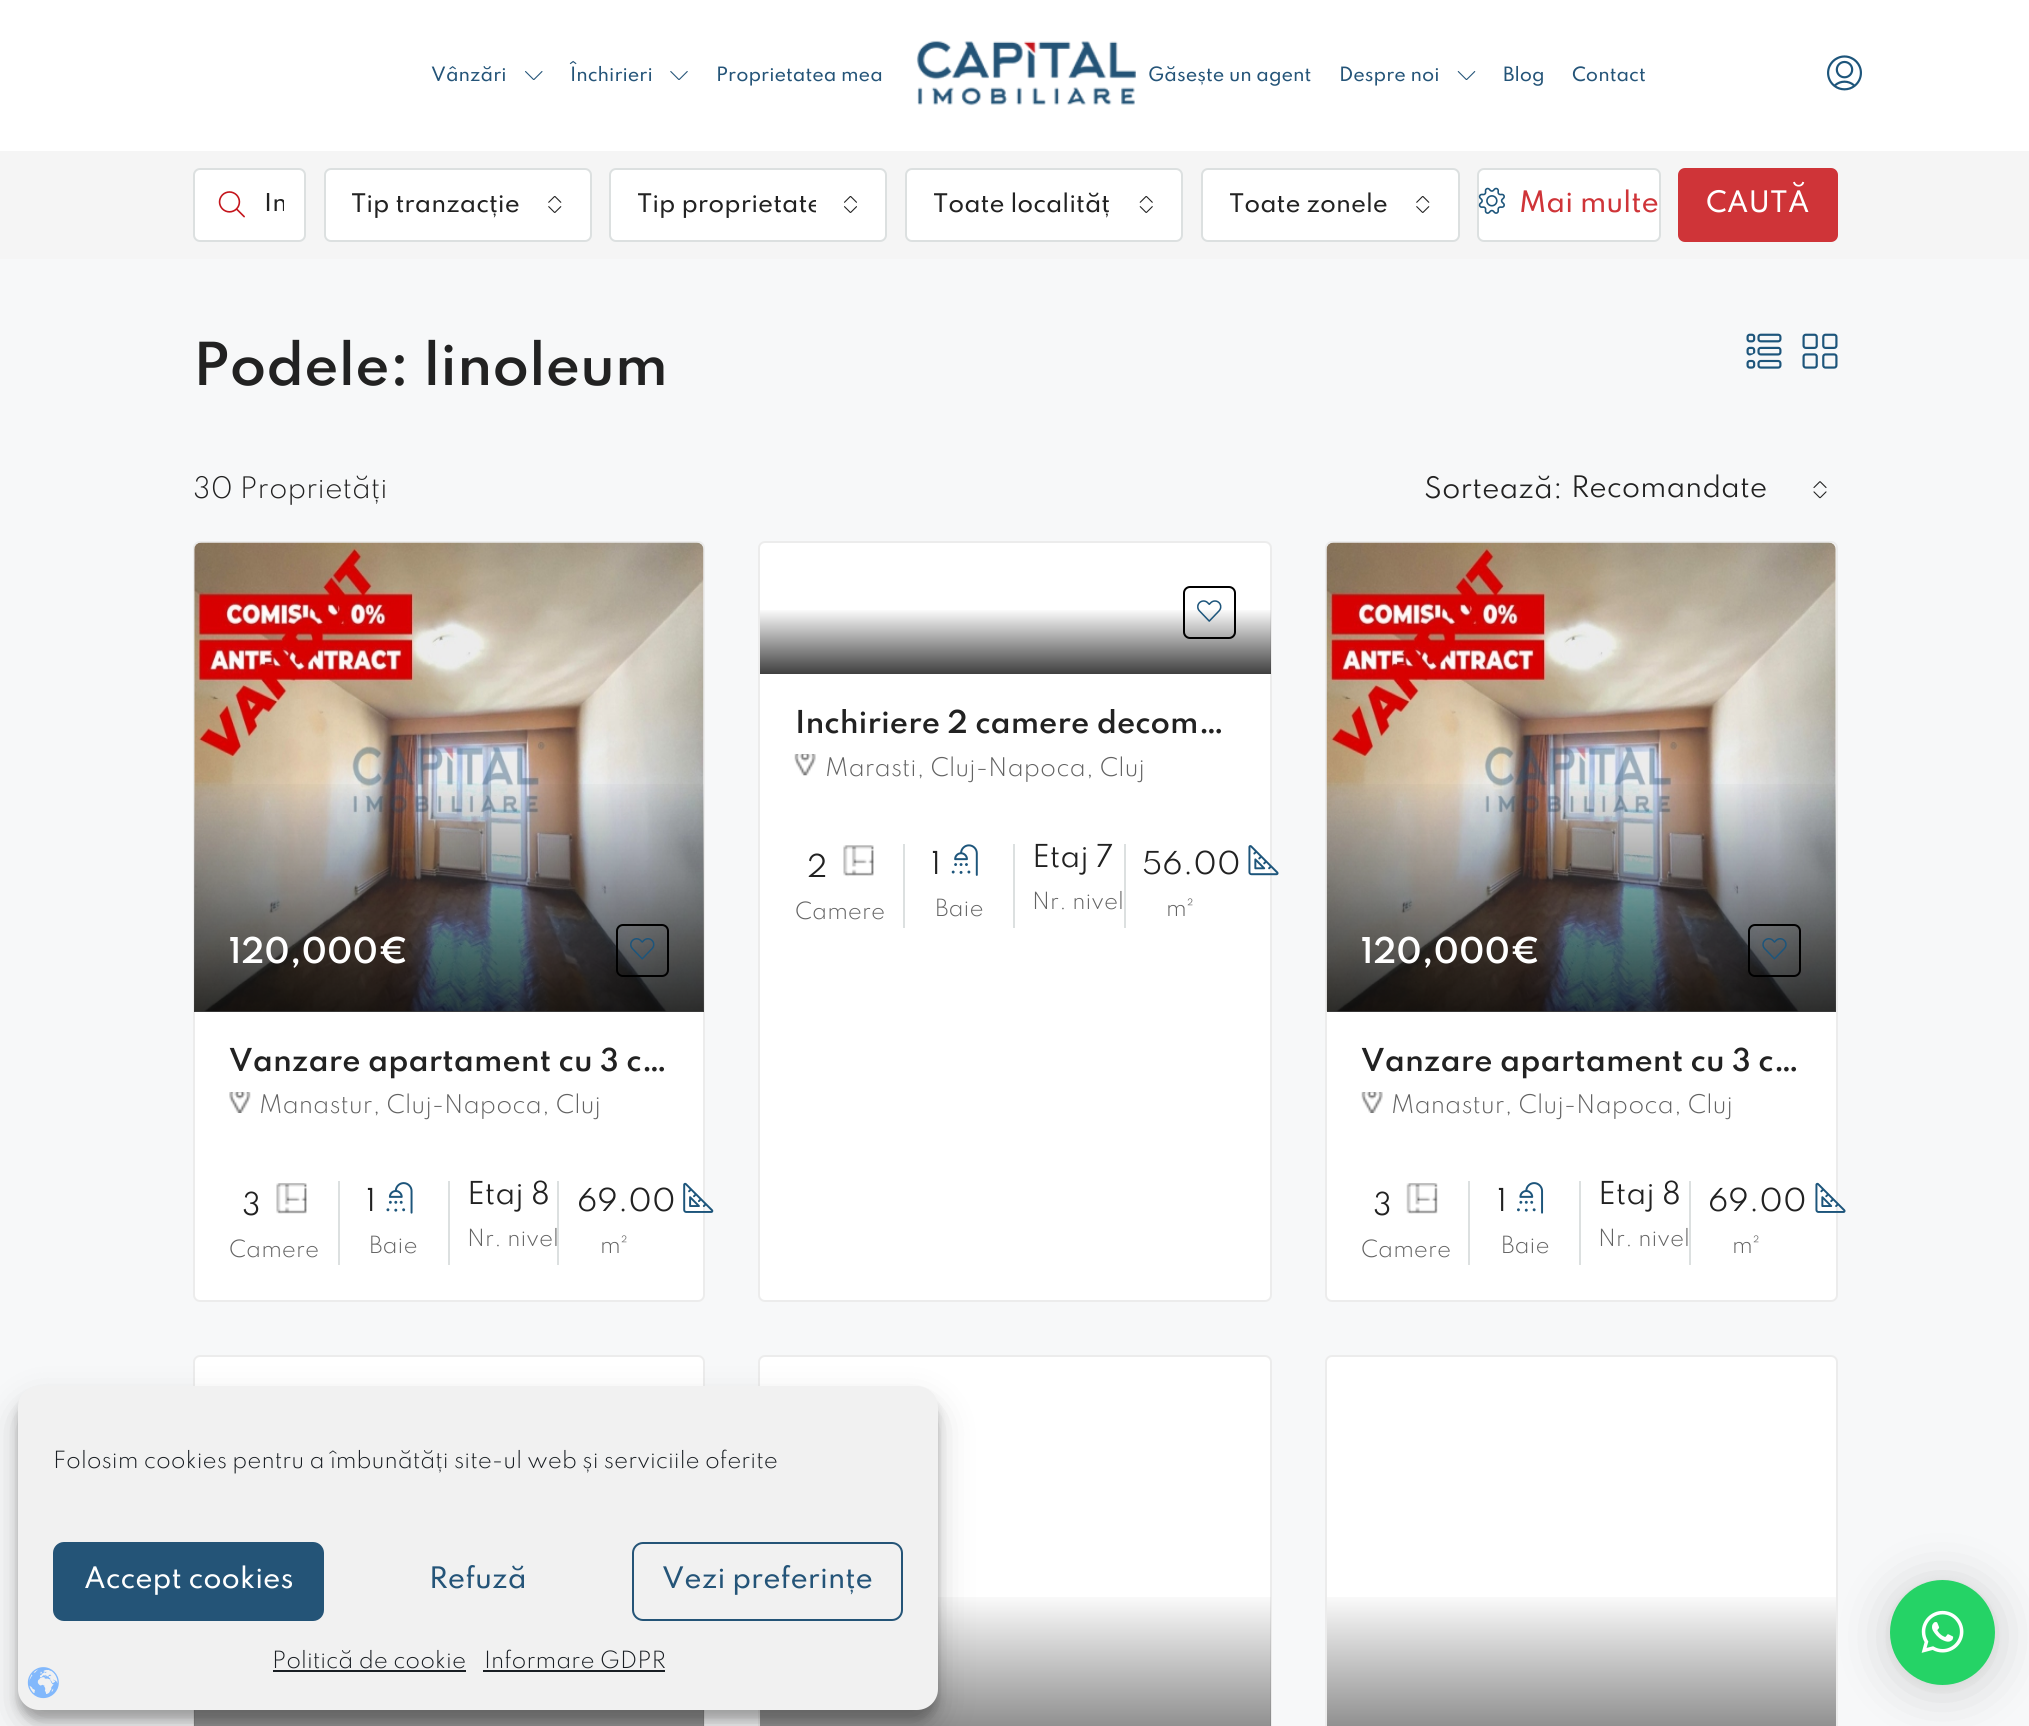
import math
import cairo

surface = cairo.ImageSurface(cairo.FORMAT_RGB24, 2029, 1726)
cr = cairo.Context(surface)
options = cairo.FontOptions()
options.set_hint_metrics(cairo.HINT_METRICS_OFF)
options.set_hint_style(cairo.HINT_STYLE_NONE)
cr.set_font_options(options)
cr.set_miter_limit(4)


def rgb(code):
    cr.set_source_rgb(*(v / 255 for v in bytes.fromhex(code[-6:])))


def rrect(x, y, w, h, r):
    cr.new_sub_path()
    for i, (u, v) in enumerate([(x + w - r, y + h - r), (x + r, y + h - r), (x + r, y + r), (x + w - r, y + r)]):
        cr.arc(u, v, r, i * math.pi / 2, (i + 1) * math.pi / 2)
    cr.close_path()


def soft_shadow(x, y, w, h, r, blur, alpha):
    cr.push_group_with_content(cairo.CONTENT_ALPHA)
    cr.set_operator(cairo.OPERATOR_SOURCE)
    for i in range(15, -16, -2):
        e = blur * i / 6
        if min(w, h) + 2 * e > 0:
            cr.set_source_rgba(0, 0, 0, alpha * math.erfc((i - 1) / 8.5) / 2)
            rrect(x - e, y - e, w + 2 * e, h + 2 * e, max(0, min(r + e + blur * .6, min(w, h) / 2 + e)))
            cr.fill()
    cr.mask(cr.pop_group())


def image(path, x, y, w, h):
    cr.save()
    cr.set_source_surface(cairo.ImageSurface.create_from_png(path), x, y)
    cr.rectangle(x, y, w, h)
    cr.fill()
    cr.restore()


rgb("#f7f8f9")
cr.paint()
rgb("#ffffff")
cr.rectangle(0, 0, 2029, 151)
cr.fill()
image("img/1.png", 525, 71, 18, 9)
image("img/2.png", 670, 71, 18, 9)
image("img/3.png", 916, 40, 220, 66)
image("img/4.png", 1457, 71, 19, 9)
image("img/5.png", 1827, 55, 35, 36)
rgb("#f5f5f5")
cr.rectangle(0, 151, 2029, 108)
cr.fill()
rgb("#ffffff")
rrect(194, 169, 111, 72, 6)
cr.fill_preserve()
rgb("#dce0e0")
cr.stroke()
image("img/6.png", 218, 191, 27, 27)
rgb("#ffffff")
rrect(325, 169, 266, 72, 6)
cr.fill_preserve()
rgb("#dce0e0")
cr.stroke()
image("img/7.png", 548, 196, 14, 17)
rgb("#ffffff")
rrect(610, 169, 276, 72, 6)
cr.fill_preserve()
rgb("#dce0e0")
cr.stroke()
image("img/8.png", 844, 196, 13, 17)
rgb("#ffffff")
rrect(906, 169, 276, 72, 6)
cr.fill_preserve()
rgb("#dce0e0")
cr.stroke()
image("img/9.png", 1139, 196, 14, 17)
rgb("#ffffff")
rrect(1202, 169, 257, 72, 6)
cr.fill_preserve()
rgb("#dce0e0")
cr.stroke()
image("img/7.png", 1416, 196, 14, 17)
rgb("#ffffff")
rrect(1478, 169, 182, 72, 6)
cr.fill_preserve()
rgb("#dce0e0")
cr.stroke()
image("img/10.png", 1478, 187, 27, 27)
rgb("#cf3438")
rrect(1679, 169, 158, 72, 6)
cr.fill_preserve()
cr.stroke()
image("img/11.png", 1746, 333, 36, 36)
image("img/12.png", 1802, 333, 36, 36)
image("img/13.png", 1813, 481, 14, 18)
rgb("#ffffff")
rrect(759, 542, 512, 759, 6)
cr.fill_preserve()
rgb("#ececec")
cr.stroke()
gradient = cairo.LinearGradient(1015, 543, 1015, 674)
gradient.add_color_stop_rgba(0, 0, 0, 0, 0)
gradient.add_color_stop_rgba(0.5, 0, 0, 0, 0)
gradient.add_color_stop_rgba(1, 0, 0, 0, 0.75)
cr.set_source(gradient)
cr.rectangle(760, 610, 511, 64)
cr.fill()
rrect(1184, 587, 51, 51, 6)
rgb("#000000")
cr.stroke()
image("img/14.png", 1197, 600, 25, 22)
image("img/15.png", 794, 754, 22, 22)
rgb("#dce0e0")
cr.rectangle(903, 844, 2, 84)
cr.fill()
image("img/16.png", 843, 845, 31, 32)
cr.rectangle(1013, 844, 2, 84)
cr.fill()
image("img/17.png", 951, 844, 27, 32)
cr.rectangle(1124, 844, 2, 84)
cr.fill()
image("img/18.png", 1248, 845, 31, 31)
rgb("#ffffff")
rrect(194, 542, 510, 759, 6)
cr.fill_preserve()
rgb("#ececec")
cr.stroke()
image("img/19.png", 194, 542, 510, 470)
gradient = cairo.LinearGradient(449, 543, 449, 1012)
gradient.add_color_stop_rgba(0, 0, 0, 0, 0)
gradient.add_color_stop_rgba(0.5, 0, 0, 0, 0)
gradient.add_color_stop_rgba(1, 0, 0, 0, 0.75)
cr.set_source(gradient)
cr.rectangle(194, 784, 510, 228)
cr.fill()
rrect(617, 925, 51, 51, 6)
rgb("#000000")
cr.stroke()
image("img/20.png", 630, 938, 25, 22)
image("img/21.png", 229, 1092, 22, 21)
rgb("#dce0e0")
cr.rectangle(338, 1181, 2, 84)
cr.fill()
image("img/22.png", 276, 1183, 31, 31)
cr.rectangle(448, 1181, 2, 84)
cr.fill()
image("img/23.png", 386, 1182, 27, 32)
cr.rectangle(557, 1181, 2, 84)
cr.fill()
image("img/24.png", 683, 1182, 31, 31)
rgb("#ffffff")
rrect(1326, 542, 511, 759, 6)
cr.fill_preserve()
rgb("#ececec")
cr.stroke()
image("img/25.png", 1326, 542, 510, 470)
gradient = cairo.LinearGradient(1581, 543, 1581, 1012)
gradient.add_color_stop_rgba(0, 0, 0, 0, 0)
gradient.add_color_stop_rgba(0.5, 0, 0, 0, 0)
gradient.add_color_stop_rgba(1, 0, 0, 0, 0.75)
cr.set_source(gradient)
cr.rectangle(1327, 784, 509, 228)
cr.fill()
rrect(1749, 925, 51, 51, 6)
rgb("#000000")
cr.stroke()
image("img/26.png", 1762, 938, 25, 22)
image("img/27.png", 1361, 1092, 22, 21)
rgb("#dce0e0")
cr.rectangle(1468, 1181, 2, 84)
cr.fill()
image("img/28.png", 1406, 1183, 32, 31)
cr.rectangle(1579, 1181, 2, 84)
cr.fill()
image("img/29.png", 1517, 1182, 27, 32)
cr.rectangle(1689, 1181, 2, 84)
cr.fill()
image("img/30.png", 1815, 1182, 31, 31)
rgb("#ffffff")
rrect(194, 1356, 510, 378, 6)
cr.fill_preserve()
rgb("#ececec")
cr.stroke()
gradient = cairo.LinearGradient(449, 1356, 449, 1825)
gradient.add_color_stop_rgba(0, 0, 0, 0, 0)
gradient.add_color_stop_rgba(0.5, 0, 0, 0, 0)
gradient.add_color_stop_rgba(1, 0, 0, 0, 0.75)
cr.set_source(gradient)
cr.rectangle(194, 1710, 510, 16)
cr.fill()
rgb("#ffffff")
rrect(759, 1356, 512, 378, 6)
cr.fill_preserve()
rgb("#ececec")
cr.stroke()
gradient = cairo.LinearGradient(1015, 1356, 1015, 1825)
gradient.add_color_stop_rgba(0, 0, 0, 0, 0)
gradient.add_color_stop_rgba(0.5, 0, 0, 0, 0)
gradient.add_color_stop_rgba(1, 0, 0, 0, 0.75)
cr.set_source(gradient)
cr.rectangle(760, 1597, 511, 129)
cr.fill()
rgb("#ffffff")
rrect(1326, 1356, 511, 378, 6)
cr.fill_preserve()
rgb("#ececec")
cr.stroke()
gradient = cairo.LinearGradient(1581, 1356, 1581, 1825)
gradient.add_color_stop_rgba(0, 0, 0, 0, 0)
gradient.add_color_stop_rgba(0.5, 0, 0, 0, 0)
gradient.add_color_stop_rgba(1, 0, 0, 0, 0.75)
cr.set_source(gradient)
cr.rectangle(1327, 1597, 509, 129)
cr.fill()
rgb("#000000")
soft_shadow(18, 1397, 920, 323, 21, 5, 0.23)
soft_shadow(18, 1404, 920, 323, 21, 17.5, 0.19)
rgb("#f1f1f1")
rrect(18, 1386, 920, 324, 21)
cr.fill()
image("img/31.png", 27, 1667, 32, 32)
rgb("#245477")
rrect(54, 1543, 269, 77, 10)
cr.fill_preserve()
cr.stroke()
rrect(633, 1543, 269, 77, 10)
cr.stroke()
rgb("#191e23")
cr.rectangle(273, 1670, 193, 2)
cr.fill()
cr.rectangle(483, 1670, 182, 2)
cr.fill()
rgb("#000000")
soft_shadow(1890, 1584, 105, 105, 52.5, 28, 0.16)
soft_shadow(1890, 1582, 105, 105, 52.5, 5, 0.06)
rgb("#25d366")
cr.arc(1942.5, 1632.5, 52.5, 0, 2 * math.pi)
cr.fill()
image("img/32.png", 1921, 1610, 43, 43)
cr.select_font_face("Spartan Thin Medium")
cr.set_font_size(17.5)
rgb("#245478")
for x, y, s in [
    (431, 81, "Vânzări"),
    (570, 81, "Închirieri"),
    (716, 81, "Proprietatea mea"),
    (1148, 81, "Găsește un agent"),
    (1339, 81, "Despre noi"),
    (1503, 81, "Blog"),
    (1572, 81, "Contact"),
]:
    cr.move_to(x, y)
    cr.show_text(s)
cr.save()
cr.rectangle(264, 193, 20, 26)
cr.clip()
cr.set_font_size(22.75)
rgb("#222222")
cr.move_to(264, 211)
cr.show_text("In")
cr.restore()
cr.set_font_size(22.75)
rgb("#222222")
cr.move_to(351, 212)
cr.show_text("Tip tranzacție")
cr.save()
cr.rectangle(637, 170, 179, 70)
cr.clip()
cr.move_to(637, 212)
cr.show_text("Tip proprietate")
cr.restore()
cr.move_to(933, 212)
cr.show_text("Toate localităț")
cr.move_to(1229, 212)
cr.show_text("Toate zonele")
cr.set_font_size(26.25)
rgb("#cf3438")
cr.move_to(1519, 212)
cr.show_text("Mai multe")
rgb("#ffffff")
cr.move_to(1706, 212)
cr.show_text("CAUTĂ")
cr.select_font_face("Spartan Thin SemiBold")
cr.set_font_size(52.5)
rgb("#222222")
cr.move_to(193, 385)
cr.show_text("Podele: linoleum")
cr.select_font_face("Spartan Thin Light")
cr.set_font_size(26.25)
cr.move_to(193, 498)
cr.show_text("30 Proprietăți")
cr.select_font_face("Spartan Thin")
cr.move_to(1424, 498)
cr.show_text("Sortează:")
cr.move_to(1571, 497)
cr.show_text("Recomandate")
cr.save()
cr.rectangle(795, 709, 441, 33)
cr.clip()
cr.select_font_face("Spartan Thin SemiBold")
cr.set_font_size(28)
cr.move_to(795, 733)
cr.show_text("Inchiriere 2 camere decom…")
cr.restore()
cr.select_font_face("Spartan Thin Light")
cr.set_font_size(22.75)
rgb("#636363")
cr.move_to(825, 776)
cr.show_text("Marasti, Cluj-Napoca, Cluj")
cr.select_font_face("Spartan Thin")
cr.set_font_size(28)
rgb("#222222")
cr.move_to(807, 877)
cr.show_text("2")
cr.select_font_face("Spartan Thin Light")
cr.set_font_size(21)
rgb("#636363")
cr.move_to(795, 919)
cr.show_text("Camere")
cr.select_font_face("Spartan Thin")
cr.set_font_size(28)
rgb("#222222")
cr.move_to(931, 874)
cr.show_text("1")
cr.select_font_face("Spartan Thin Light")
cr.set_font_size(21)
rgb("#636363")
cr.move_to(935, 916)
cr.show_text("Baie")
cr.select_font_face("Spartan Thin")
cr.set_font_size(28)
rgb("#222222")
cr.move_to(1032, 867)
cr.show_text("Etaj 7")
cr.select_font_face("Spartan Thin Light")
cr.set_font_size(21)
rgb("#636363")
cr.move_to(1032, 909)
cr.show_text("Nr. nivel")
cr.select_font_face("Spartan Thin")
cr.set_font_size(28)
rgb("#222222")
cr.move_to(1142, 874)
cr.show_text("56.00")
cr.select_font_face("Spartan Thin Light")
cr.set_font_size(21)
rgb("#636363")
cr.move_to(1166, 916)
cr.show_text("m²")
cr.select_font_face("Spartan Thin SemiBold")
cr.set_font_size(31.5)
rgb("#ffffff")
cr.move_to(229, 963)
cr.show_text("120,000€")
cr.set_font_size(28)
rgb("#222222")
cr.move_to(229, 1071)
cr.show_text("Vanzare apartament cu 3 c…")
cr.select_font_face("Spartan Thin Light")
cr.set_font_size(22.75)
rgb("#636363")
cr.move_to(259, 1113)
cr.show_text("Manastur, Cluj-Napoca, Cluj")
cr.select_font_face("Spartan Thin")
cr.set_font_size(28)
rgb("#222222")
cr.move_to(242, 1215)
cr.show_text("3")
cr.select_font_face("Spartan Thin Light")
cr.set_font_size(21)
rgb("#636363")
cr.move_to(229, 1257)
cr.show_text("Camere")
cr.select_font_face("Spartan Thin")
cr.set_font_size(28)
rgb("#222222")
cr.move_to(366, 1211)
cr.show_text("1")
cr.select_font_face("Spartan Thin Light")
cr.set_font_size(21)
rgb("#636363")
cr.move_to(369, 1253)
cr.show_text("Baie")
cr.select_font_face("Spartan Thin")
cr.set_font_size(28)
rgb("#222222")
cr.move_to(467, 1204)
cr.show_text("Etaj 8")
cr.select_font_face("Spartan Thin Light")
cr.set_font_size(21)
rgb("#636363")
cr.move_to(467, 1246)
cr.show_text("Nr. nivel")
cr.select_font_face("Spartan Thin")
cr.set_font_size(28)
rgb("#222222")
cr.move_to(577, 1211)
cr.show_text("69.00")
cr.select_font_face("Spartan Thin Light")
cr.set_font_size(21)
rgb("#636363")
cr.move_to(600, 1253)
cr.show_text("m²")
cr.select_font_face("Spartan Thin SemiBold")
cr.set_font_size(31.5)
rgb("#ffffff")
cr.move_to(1361, 963)
cr.show_text("120,000€")
cr.set_font_size(28)
rgb("#222222")
cr.move_to(1361, 1071)
cr.show_text("Vanzare apartament cu 3 c…")
cr.select_font_face("Spartan Thin Light")
cr.set_font_size(22.75)
rgb("#636363")
cr.move_to(1391, 1113)
cr.show_text("Manastur, Cluj-Napoca, Cluj")
cr.select_font_face("Spartan Thin")
cr.set_font_size(28)
rgb("#222222")
cr.move_to(1373, 1215)
cr.show_text("3")
cr.select_font_face("Spartan Thin Light")
cr.set_font_size(21)
rgb("#636363")
cr.move_to(1361, 1257)
cr.show_text("Camere")
cr.select_font_face("Spartan Thin")
cr.set_font_size(28)
rgb("#222222")
cr.move_to(1497, 1211)
cr.show_text("1")
cr.select_font_face("Spartan Thin Light")
cr.set_font_size(21)
rgb("#636363")
cr.move_to(1501, 1253)
cr.show_text("Baie")
cr.select_font_face("Spartan Thin")
cr.set_font_size(28)
rgb("#222222")
cr.move_to(1598, 1204)
cr.show_text("Etaj 8")
cr.select_font_face("Spartan Thin Light")
cr.set_font_size(21)
rgb("#636363")
cr.move_to(1598, 1246)
cr.show_text("Nr. nivel")
cr.select_font_face("Spartan Thin")
cr.set_font_size(28)
rgb("#222222")
cr.move_to(1708, 1211)
cr.show_text("69.00")
cr.select_font_face("Spartan Thin Light")
cr.set_font_size(21)
rgb("#636363")
cr.move_to(1732, 1253)
cr.show_text("m²")
rgb("#191e23")
cr.move_to(53, 1468)
cr.show_text("Folosim cookies pentru a îmbunătăți site-ul web și serviciile oferite")
cr.select_font_face("Spartan Thin Medium")
cr.set_font_size(26.25)
rgb("#ffffff")
cr.move_to(84, 1588)
cr.show_text("Accept cookies")
rgb("#245478")
cr.move_to(429, 1588)
cr.show_text("Refuză")
cr.move_to(662, 1588)
cr.show_text("Vezi preferințe")
cr.select_font_face("Spartan Thin Light")
cr.set_font_size(21)
rgb("#191e23")
cr.move_to(272, 1668)
cr.show_text("Politică de cookie")
cr.move_to(484, 1668)
cr.show_text("Informare GDPR")
surface.write_to_png("page.png")
